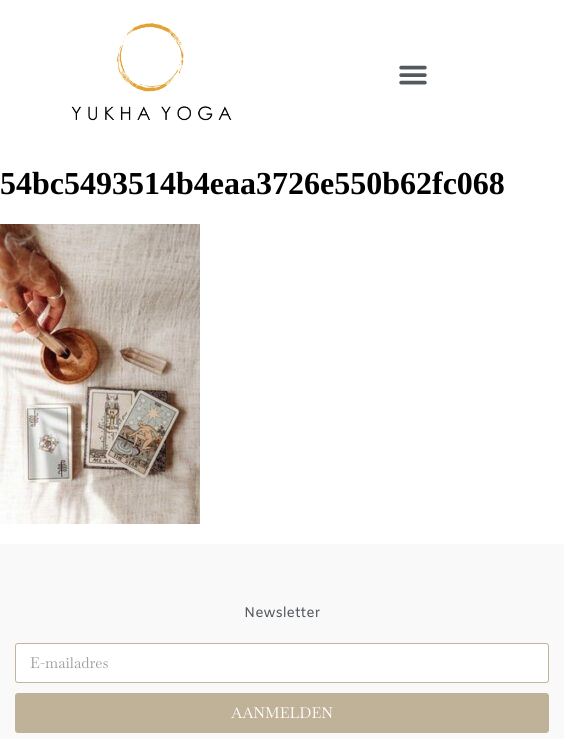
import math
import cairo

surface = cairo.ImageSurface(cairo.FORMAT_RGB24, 564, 739)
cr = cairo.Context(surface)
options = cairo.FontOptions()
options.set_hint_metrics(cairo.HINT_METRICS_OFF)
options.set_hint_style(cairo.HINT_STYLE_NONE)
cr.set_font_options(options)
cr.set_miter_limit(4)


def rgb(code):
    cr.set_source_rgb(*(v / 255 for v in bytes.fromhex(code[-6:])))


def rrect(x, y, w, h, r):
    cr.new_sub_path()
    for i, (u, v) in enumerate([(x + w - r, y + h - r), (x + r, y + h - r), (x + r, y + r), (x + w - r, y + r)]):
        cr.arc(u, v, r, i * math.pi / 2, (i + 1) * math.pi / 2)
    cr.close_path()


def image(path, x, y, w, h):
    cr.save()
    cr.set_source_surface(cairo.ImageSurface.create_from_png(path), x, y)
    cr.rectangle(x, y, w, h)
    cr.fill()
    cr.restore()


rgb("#ffffff")
cr.paint()
image("img/1.png", 71, 23, 161, 98)
image("img/2.png", 399, 65, 28, 20)
image("img/3.png", 0, 224, 200, 300)
rgb("#f9f9f9")
cr.rectangle(0, 544, 564, 195)
cr.fill()
rgb("#ffffff")
rrect(15, 643, 534, 40, 3)
cr.fill()
rrect(15.5, 643.5, 533, 39, 2.5)
cr.set_source_rgba(0.569, 0.463, 0.294, 0.55)
cr.set_line_width(1)
cr.stroke()
rgb("#c0b199")
rrect(15, 693, 534, 40, 3)
cr.fill()
cr.select_font_face("Liberation Serif", cairo.FONT_SLANT_NORMAL, cairo.FONT_WEIGHT_BOLD)
cr.set_font_size(32)
rgb("#000000")
cr.move_to(0, 194)
cr.show_text("54bc5493514b4eaa3726e550b62fc068")
cr.select_font_face("Amiko")
cr.set_font_size(14)
rgb("#54595f")
cr.move_to(244, 617)
cr.show_text("Newsletter")
cr.select_font_face("Baskervville")
cr.set_font_size(15)
rgb("#989b9f")
cr.move_to(30, 668)
cr.show_text("E-mailadres")
rgb("#ffffff")
cr.move_to(231, 718)
cr.show_text("AANMELDEN")
surface.write_to_png("page.png")
